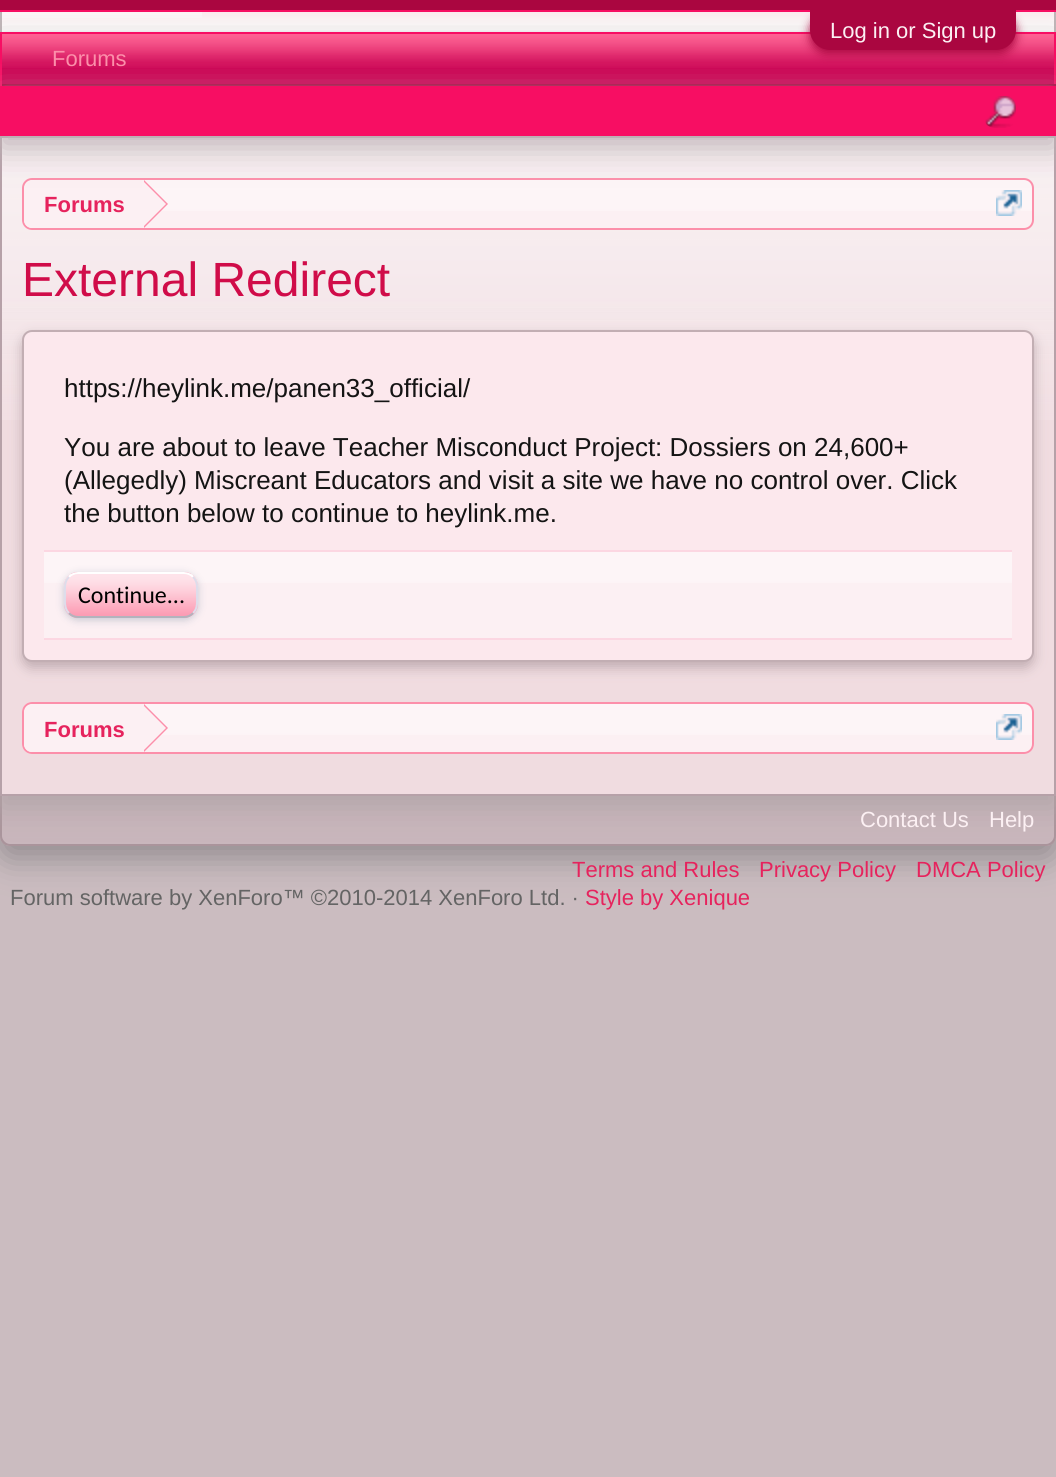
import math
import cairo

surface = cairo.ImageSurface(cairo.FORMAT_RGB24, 1056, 1477)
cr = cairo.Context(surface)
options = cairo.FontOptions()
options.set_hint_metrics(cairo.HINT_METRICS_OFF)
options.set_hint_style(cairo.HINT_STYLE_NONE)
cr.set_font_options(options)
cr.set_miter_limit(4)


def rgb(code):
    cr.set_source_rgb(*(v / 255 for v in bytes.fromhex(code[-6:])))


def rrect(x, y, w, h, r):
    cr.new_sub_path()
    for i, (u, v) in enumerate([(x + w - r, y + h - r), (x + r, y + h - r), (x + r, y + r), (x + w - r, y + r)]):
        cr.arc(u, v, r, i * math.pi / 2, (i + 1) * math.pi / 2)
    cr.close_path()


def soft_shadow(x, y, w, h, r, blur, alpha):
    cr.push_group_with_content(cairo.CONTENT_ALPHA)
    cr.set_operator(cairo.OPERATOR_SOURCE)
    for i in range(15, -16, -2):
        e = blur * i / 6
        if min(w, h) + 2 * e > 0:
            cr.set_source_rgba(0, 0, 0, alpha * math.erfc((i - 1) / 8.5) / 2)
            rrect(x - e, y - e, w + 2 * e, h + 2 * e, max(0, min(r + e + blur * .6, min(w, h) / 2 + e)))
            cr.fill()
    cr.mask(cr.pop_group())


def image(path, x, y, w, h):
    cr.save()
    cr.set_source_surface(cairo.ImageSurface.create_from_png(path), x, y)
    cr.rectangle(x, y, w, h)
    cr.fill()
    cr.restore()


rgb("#cbbcc0")
cr.paint()
image("img/1.png", 2, 12, 1052, 20)
image("img/2.png", 2, 12, 200, 6)
rgb("#bfb5b8")
cr.rectangle(1054, 12, 2, 20)
cr.fill()
cr.rectangle(0, 12, 2, 20)
cr.fill()
rgb("#918c8f")
soft_shadow(0, 808, 1056, 50, 10, 16, 1)
rgb("#c9b6bc")
cr.new_path()
cr.move_to(0, 796)
cr.line_to(1056, 796)
cr.line_to(1056, 836)
cr.curve_to(1056, 841.5, 1051.5, 846, 1046, 846)
cr.line_to(10, 846)
cr.curve_to(4.5, 846, 0, 841.5, 0, 836)
cr.close_path()
cr.fill()
rgb("#aa949b")
cr.set_fill_rule(cairo.FILL_RULE_EVEN_ODD)
cr.new_path()
cr.move_to(0, 796)
cr.line_to(1056, 796)
cr.line_to(1056, 836)
cr.curve_to(1056, 842, 1052, 846, 1046, 846)
cr.line_to(10, 846)
cr.curve_to(4, 846, 0, 842, 0, 836)
cr.close_path()
cr.move_to(2, 796)
cr.line_to(1054, 796)
cr.line_to(1054, 836)
cr.curve_to(1054, 840, 1050, 844, 1046, 844)
cr.line_to(10, 844)
cr.curve_to(6, 844, 2, 840, 2, 836)
cr.close_path()
cr.fill()
rgb("#b2a5a8")
soft_shadow(0, 148, 1056, 660, 0, 16, 1)
rgb("#f0dce0")
cr.rectangle(2, 138, 1052, 656)
cr.fill()
image("img/5.png", 2, 138, 1052, 282)
cr.rectangle(1, 137, 1054, 658)
rgb("#b6a1a8")
cr.stroke()
rgb("#b2a5a8")
soft_shadow(0, 44, 1056, 54, 0, 16, 1)
for x, y, w, h, color in [
    (0, 0, 1056, 10, "#aa0640"),
    (0, 10, 1056, 2, "#f70e63"),
    (2, 35, 1052, 49, "#cc0454"),
]:
    rgb(color)
    cr.rectangle(x, y, w, h)
    cr.fill()
image("img/3.png", 2, 34, 1052, 34)
rgb("#f70e63")
cr.rectangle(0, 32, 1056, 2)
cr.fill()
rgb("#aa0640")
soft_shadow(810, 14, 206, 40, 20, 5, 1)
for x, y, w, h, color in [
    (1054, 32, 2, 54, "#f70e63"),
    (0, 84, 1056, 2, "#aa0640"),
    (0, 32, 2, 54, "#f70e63"),
]:
    rgb(color)
    cr.rectangle(x, y, w, h)
    cr.fill()
rgb("#fcf0f3")
rrect(22, 178, 1012, 52, 10)
cr.fill()
image("img/6.png", 22, 180, 1012, 31)
rrect(23, 179, 1010, 50, 9)
rgb("#fc8faa")
cr.stroke()
cr.save()
cr.set_fill_rule(cairo.FILL_RULE_WINDING)
rrect(24, 180, 1008, 48, 8)
cr.clip()
rgb("#fcf0f3")
cr.new_path()
cr.move_to(34, 180)
cr.line_to(144, 180)
cr.line_to(144, 230)
cr.line_to(34, 230)
cr.curve_to(28.5, 230, 24, 225.5, 24, 220)
cr.line_to(24, 190)
cr.curve_to(24, 184.5, 28.5, 180, 34, 180)
cr.close_path()
cr.fill()
cr.restore()
image("img/7.png", 996, 190, 26, 26)
rgb("#bfb5b8")
soft_shadow(0, 98, 1056, 50, 0, 16, 1)
rgb("#aa0640")
cr.new_path()
cr.move_to(810, 10)
cr.line_to(1016, 10)
cr.line_to(1016, 30)
cr.curve_to(1016, 41, 1007, 50, 996, 50)
cr.line_to(830, 50)
cr.curve_to(819, 50, 810, 41, 810, 30)
cr.close_path()
cr.fill()
rgb("#f70e63")
cr.rectangle(0, 86, 1056, 50)
cr.fill()
image("img/4.png", 985, 96, 31, 32)
rgb("#fc8faa")
cr.set_fill_rule(cairo.FILL_RULE_WINDING)
cr.new_path()
cr.move_to(144, 228)
cr.line_to(144, 180)
cr.line_to(168, 204)
cr.close_path()
cr.fill()
rgb("#fcf0f3")
cr.new_path()
cr.move_to(142, 228)
cr.line_to(142, 180)
cr.line_to(166, 204)
cr.close_path()
cr.fill()
rgb("#c2aeb3")
soft_shadow(22, 336, 1012, 332, 10, 6, 1)
rgb("#fce8ed")
rrect(23, 331, 1010, 330, 9)
cr.fill_preserve()
rgb("#c2aeb3")
cr.stroke()
rgb("#fcd7e2")
cr.rectangle(44, 550, 968, 2)
cr.fill()
rgb("#fcf0f3")
cr.rectangle(44, 552, 968, 86)
cr.fill()
image("img/8.png", 44, 552, 968, 31)
rgb("#fcd7e2")
cr.rectangle(44, 638, 968, 2)
cr.fill()
rgb("#c8c8d2")
soft_shadow(64, 574, 134, 46, 14, 4, 1)
rgb("#fc8faa")
rrect(64, 572, 134, 46, 14)
cr.fill()
image("img/9.png", 64, 574, 134, 44)
cr.new_path()
cr.move_to(69, 577)
cr.curve_to(71, 574.5, 74.5, 573, 78, 573)
cr.line_to(184, 573)
cr.curve_to(187.5, 573, 191, 574.5, 193, 577)
rgb("#ffffff")
cr.stroke()
cr.new_path()
cr.move_to(193, 577)
cr.curve_to(198, 581.5, 197, 588.5, 197, 595)
cr.curve_to(197, 601.5, 198, 608.5, 193, 613)
rgb("#ddddeb")
cr.stroke()
cr.new_path()
cr.move_to(193, 613)
cr.curve_to(191, 615.5, 187.5, 617, 184, 617)
cr.line_to(78, 617)
cr.curve_to(74.5, 617, 71, 615.5, 69, 613)
rgb("#b3b3bd")
cr.stroke()
cr.new_path()
cr.move_to(69, 613)
cr.curve_to(64, 608.5, 65, 601.5, 65, 595)
cr.curve_to(65, 588.5, 64, 581.5, 69, 577)
rgb("#ddddeb")
cr.stroke()
rgb("#fcf0f3")
rrect(22, 702, 1012, 52, 10)
cr.fill()
image("img/10.png", 22, 704, 1012, 31)
rrect(23, 703, 1010, 50, 9)
rgb("#fc8faa")
cr.stroke()
cr.save()
rrect(24, 704, 1008, 48, 8)
cr.clip()
rgb("#fcf0f3")
cr.new_path()
cr.move_to(34, 704)
cr.line_to(144, 704)
cr.line_to(144, 754)
cr.line_to(34, 754)
cr.curve_to(28.5, 754, 24, 749.5, 24, 744)
cr.line_to(24, 714)
cr.curve_to(24, 708.5, 28.5, 704, 34, 704)
cr.close_path()
cr.fill()
cr.restore()
cr.new_path()
cr.move_to(144, 752)
cr.line_to(144, 704)
cr.line_to(168, 728)
cr.close_path()
cr.fill()
rgb("#fcf0f3")
cr.new_path()
cr.move_to(142, 752)
cr.line_to(142, 704)
cr.line_to(166, 728)
cr.close_path()
cr.fill()
image("img/7.png", 996, 714, 26, 26)
cr.select_font_face("Liberation Sans")
cr.set_font_size(22)
cr.move_to(830, 38)
cr.show_text("Log in or Sign up")
rgb("#fc8faa")
cr.move_to(52, 66)
cr.show_text("Forums")
cr.select_font_face("Liberation Sans", cairo.FONT_SLANT_NORMAL, cairo.FONT_WEIGHT_BOLD)
rgb("#e6235d")
cr.move_to(44, 212)
cr.show_text("Forums")
cr.select_font_face("Liberation Sans")
cr.set_font_size(48)
rgb("#d00c49")
cr.move_to(22, 296)
cr.show_text("External Redirect")
cr.set_font_size(26)
rgb("#141414")
for x, y, s in [
    (64, 397, "https://heylink.me/panen33_official/"),
    (64, 456, "You are about to leave Teacher Misconduct Project: Dossiers on 24,600+"),
    (64, 489, "(Allegedly) Miscreant Educators and visit a site we have no control over. Click"),
    (64, 522, "the button below to continue to heylink.me."),
]:
    cr.move_to(x, y)
    cr.show_text(s)
cr.select_font_face("Carlito")
cr.set_font_size(24)
rgb("#000000")
cr.move_to(78, 603)
cr.show_text("Continue...")
cr.select_font_face("Liberation Sans", cairo.FONT_SLANT_NORMAL, cairo.FONT_WEIGHT_BOLD)
cr.set_font_size(22)
rgb("#e6235d")
cr.move_to(44, 737)
cr.show_text("Forums")
cr.select_font_face("Liberation Sans")
rgb("#fcf0f3")
cr.move_to(860, 827)
cr.show_text("Contact Us")
cr.move_to(989, 827)
cr.show_text("Help")
rgb("#e6235d")
for x, y, s in [
    (572, 877, "Terms and Rules"),
    (759, 877, "Privacy Policy"),
    (916, 877, "DMCA Policy"),
]:
    cr.move_to(x, y)
    cr.show_text(s)
rgb("#646464")
cr.move_to(10, 905)
cr.show_text("Forum software by XenForo™ ©2010-2014 XenForo Ltd. ·")
rgb("#e6235d")
cr.move_to(585, 905)
cr.show_text("Style by Xenique")
surface.write_to_png("page.png")
